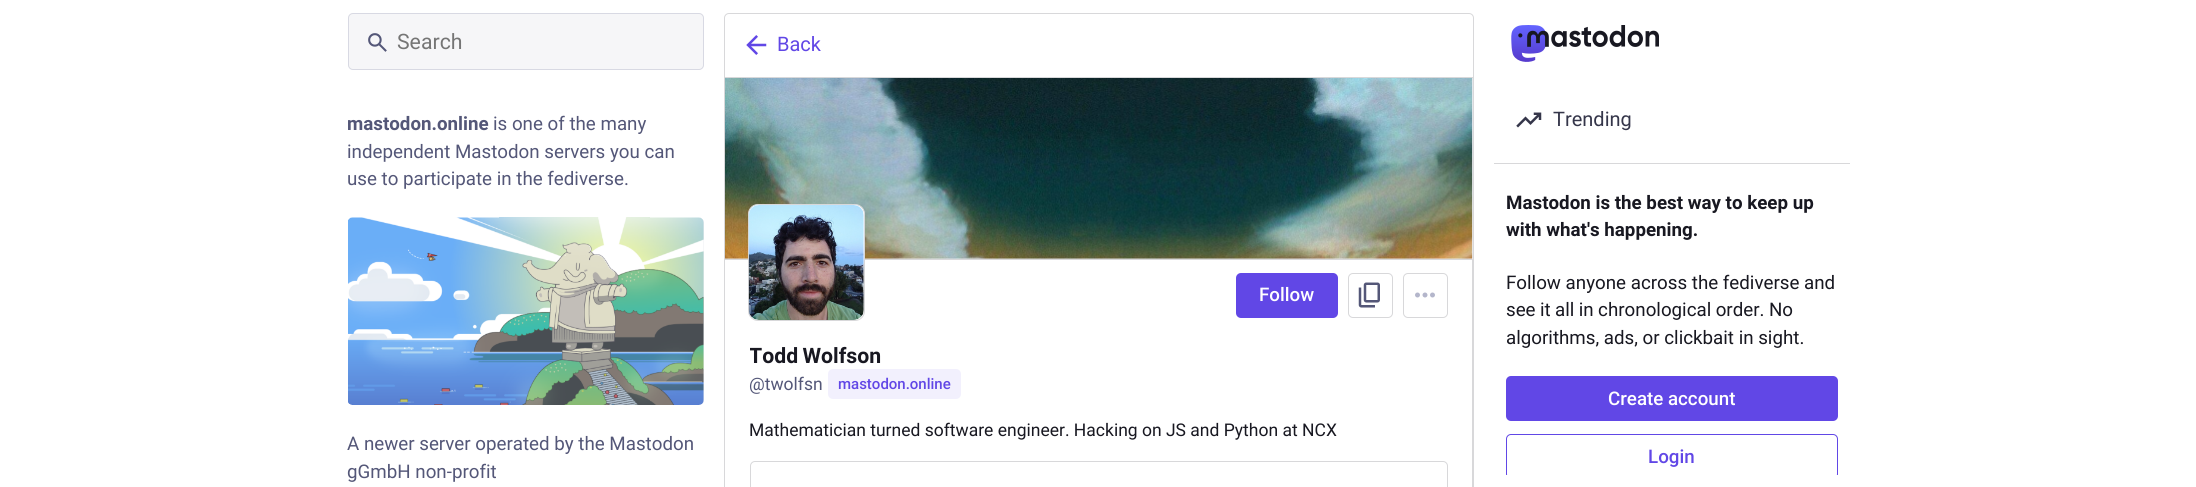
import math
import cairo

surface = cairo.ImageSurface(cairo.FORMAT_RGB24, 2196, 487)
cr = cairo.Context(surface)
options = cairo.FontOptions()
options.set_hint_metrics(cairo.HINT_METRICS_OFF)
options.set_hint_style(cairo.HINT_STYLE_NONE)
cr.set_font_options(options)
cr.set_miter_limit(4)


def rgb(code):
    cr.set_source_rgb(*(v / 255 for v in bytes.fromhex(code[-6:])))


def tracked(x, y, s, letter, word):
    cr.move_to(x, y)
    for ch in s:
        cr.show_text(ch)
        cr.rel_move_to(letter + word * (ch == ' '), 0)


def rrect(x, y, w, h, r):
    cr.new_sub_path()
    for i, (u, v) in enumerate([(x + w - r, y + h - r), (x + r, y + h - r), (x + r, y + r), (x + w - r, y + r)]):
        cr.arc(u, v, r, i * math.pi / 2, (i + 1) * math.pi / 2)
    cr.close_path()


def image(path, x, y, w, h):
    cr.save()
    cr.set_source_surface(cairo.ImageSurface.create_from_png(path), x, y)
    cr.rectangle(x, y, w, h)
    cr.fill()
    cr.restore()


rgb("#ffffff")
cr.paint()
rgb("#f6f6f8")
rrect(348.5, 13.5, 355, 56, 4.5)
cr.fill_preserve()
rgb("#d8d9e3")
cr.set_line_width(1)
cr.stroke()
image("img/1.png", 368, 33, 19, 19)
rgb("#ecedf1")
rrect(348, 218, 356, 187, 5)
cr.fill()
image("img/2.png", 348, 217, 356, 188)
cr.new_path()
cr.move_to(729, 13.5)
cr.line_to(1469, 13.5)
cr.curve_to(1471.5, 13.5, 1473.5, 15.5, 1473.5, 18)
cr.line_to(1473.5, 77.5)
cr.line_to(724.5, 77.5)
cr.line_to(724.5, 18)
cr.curve_to(724.5, 15.5, 726.5, 13.5, 729, 13.5)
cr.close_path()
rgb("#d8d8da")
cr.stroke()
image("img/3.png", 746, 35, 21, 20)
cr.set_fill_rule(cairo.FILL_RULE_EVEN_ODD)
cr.new_path()
cr.move_to(724, 78)
cr.line_to(1474, 78)
cr.line_to(1474, 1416)
cr.curve_to(1474, 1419, 1472, 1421, 1469, 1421)
cr.line_to(729, 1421)
cr.curve_to(726, 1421, 724, 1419, 724, 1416)
cr.close_path()
cr.move_to(725, 78)
cr.line_to(1472, 78)
cr.line_to(1472, 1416)
cr.curve_to(1472, 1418, 1471, 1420, 1469, 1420)
cr.line_to(729, 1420)
cr.curve_to(727, 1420, 725, 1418, 725, 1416)
cr.close_path()
cr.fill()
rgb("#ecedf1")
cr.rectangle(725, 78, 748, 181)
cr.fill()
rgb("#d8d8da")
cr.rectangle(725, 259, 748, 1)
cr.fill()
image("img/4.png", 725, 78, 748, 181)
rgb("#ffffff")
rrect(748.5, 204.5, 116, 116, 9.5)
cr.fill_preserve()
rgb("#d8d8da")
cr.stroke()
image("img/5.png", 748, 205, 116, 115)
rgb("#6147e6")
rrect(1236, 273, 102, 45, 5)
cr.fill()
rrect(1348.5, 273.5, 44, 44, 4.5)
rgb("#d8d8da")
cr.stroke()
image("img/6.png", 1358, 282, 22, 26)
rrect(1403.5, 273.5, 44, 44, 4.5)
cr.stroke()
image("img/7.png", 1415, 292, 20, 6)
rgb("#f2f0fd")
rrect(828, 369, 133, 30, 5)
cr.fill()
rrect(750.5, 461.5, 697, 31, 4.5)
rgb("#d8d8da")
cr.stroke()
image("img/8.png", 1511, 25, 148, 37)
image("img/9.png", 1516, 112, 26, 16)
cr.rectangle(1494, 163, 356, 1)
cr.fill()
rgb("#6147e6")
rrect(1506, 376, 332, 45, 5)
cr.fill()
cr.save()
cr.set_fill_rule(cairo.FILL_RULE_WINDING)
cr.rectangle(1494, 90, 356, 385)
cr.clip()
rrect(1506.5, 434.5, 331, 44, 4.5)
cr.stroke()
cr.restore()
cr.select_font_face("Roboto")
cr.set_font_size(21.25)
rgb("#757575")
cr.move_to(397, 49)
cr.show_text("Search")
cr.save()
cr.set_fill_rule(cairo.FILL_RULE_WINDING)
cr.rectangle(348, 13, 356, 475)
cr.clip()
cr.select_font_face("Roboto", cairo.FONT_SLANT_NORMAL, cairo.FONT_WEIGHT_BOLD)
cr.set_font_size(18.75)
rgb("#545778")
cr.move_to(347, 130)
cr.show_text("mastodon.online")
cr.restore()
cr.set_font_size(18.75)
rgb("#545778")
for x, y, s in [
    (493, 130, "is one of the many"),
    (347, 158, "independent Mastodon servers you can"),
    (347, 185, "use to participate in the fediverse."),
    (347, 450, "A newer server operated by the Mastodon"),
    (347, 478, "gGmbH non-profit"),
]:
    cr.move_to(x, y)
    cr.show_text(s)
cr.set_font_size(20)
rgb("#6147e6")
cr.move_to(777, 51)
cr.show_text("Back")
cr.select_font_face("Roboto Medium")
cr.set_font_size(18.75)
rgb("#ffffff")
cr.move_to(1259, 301)
cr.show_text("Follow")
cr.save()
cr.set_fill_rule(cairo.FILL_RULE_WINDING)
cr.rectangle(750, 341, 698, 58)
cr.clip()
cr.select_font_face("Roboto", cairo.FONT_SLANT_NORMAL, cairo.FONT_WEIGHT_BOLD)
cr.set_font_size(21.25)
rgb("#181821")
tracked(749, 363, "Todd Wolfson", 0, -1)
cr.restore()
cr.select_font_face("Roboto")
cr.set_font_size(17.5)
rgb("#545778")
cr.move_to(749, 390)
cr.show_text("@twolfsn")
cr.select_font_face("Roboto Medium")
cr.set_font_size(15)
rgb("#6147e6")
cr.move_to(838, 389)
cr.show_text("mastodon.online")
cr.select_font_face("Roboto")
cr.set_font_size(17.5)
rgb("#181821")
cr.move_to(749, 436)
cr.show_text("Mathematician turned software engineer. Hacking on JS and Python at NCX")
cr.set_font_size(20)
rgb("#35364a")
cr.move_to(1553, 126)
cr.show_text("Trending")
cr.select_font_face("Roboto", cairo.FONT_SLANT_NORMAL, cairo.FONT_WEIGHT_BOLD)
cr.set_font_size(18.75)
rgb("#181821")
cr.move_to(1506, 209)
cr.show_text("Mastodon is the best way to keep up")
cr.move_to(1506, 236)
cr.show_text("with what's happening.")
cr.select_font_face("Roboto")
cr.move_to(1506, 289)
cr.show_text("Follow anyone across the fediverse and")
tracked(1506, 316, "see it all in chronological order. No", 0, -0.25)
cr.move_to(1506, 344)
cr.show_text("algorithms, ads, or clickbait in sight.")
cr.select_font_face("Roboto Medium")
rgb("#ffffff")
cr.move_to(1608, 405)
cr.show_text("Create account")
rgb("#6147e6")
cr.move_to(1648, 463)
cr.show_text("Login")
surface.write_to_png("page.png")
